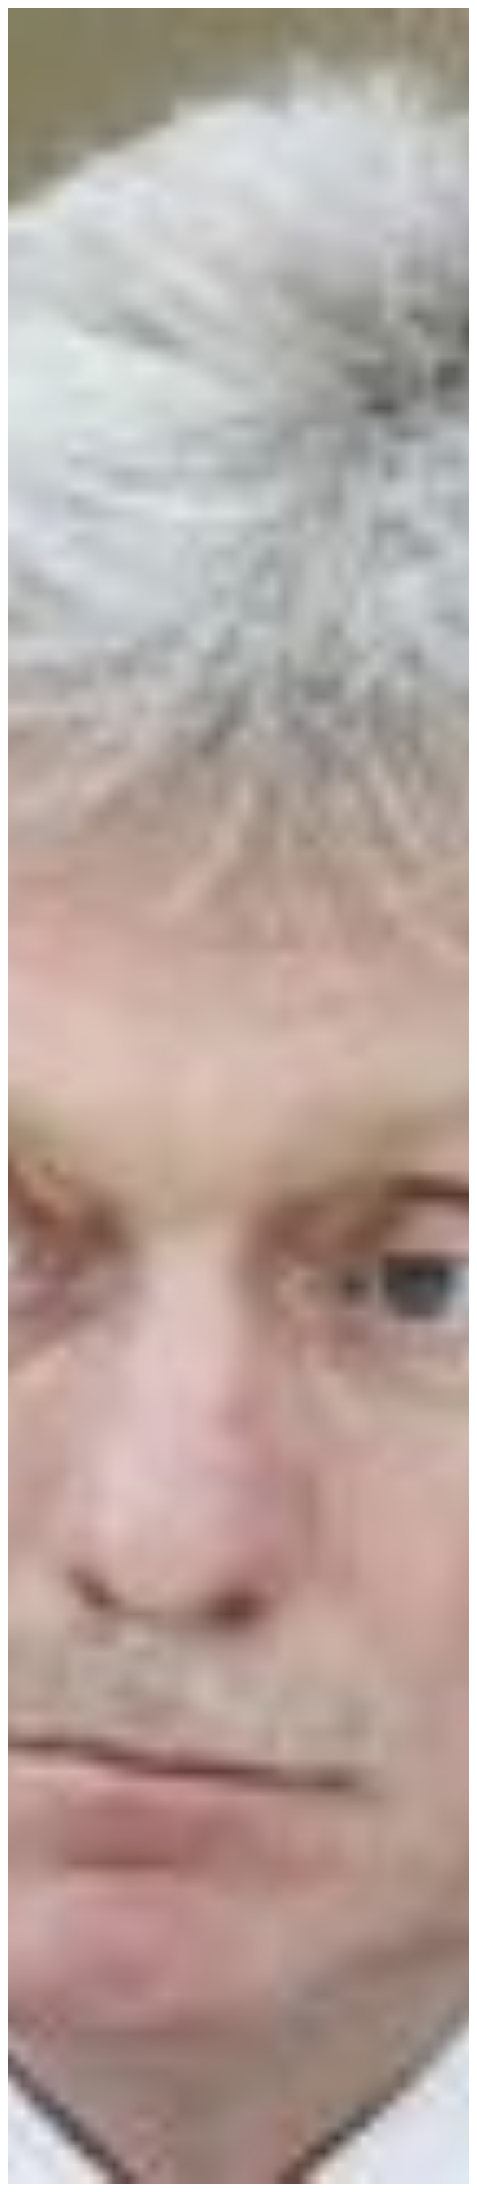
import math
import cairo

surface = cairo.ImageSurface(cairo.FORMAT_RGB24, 477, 2192)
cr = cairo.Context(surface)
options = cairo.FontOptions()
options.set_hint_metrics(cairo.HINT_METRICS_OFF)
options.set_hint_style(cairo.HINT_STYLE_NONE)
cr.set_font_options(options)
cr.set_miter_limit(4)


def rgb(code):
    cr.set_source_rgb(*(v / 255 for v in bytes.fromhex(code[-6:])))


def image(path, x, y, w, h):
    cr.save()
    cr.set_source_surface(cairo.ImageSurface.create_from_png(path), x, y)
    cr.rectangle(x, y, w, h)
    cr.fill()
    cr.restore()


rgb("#ffffff")
cr.paint()
image("img/1.png", 8, 8, 461, 2176)
surface.write_to_png("page.png")
